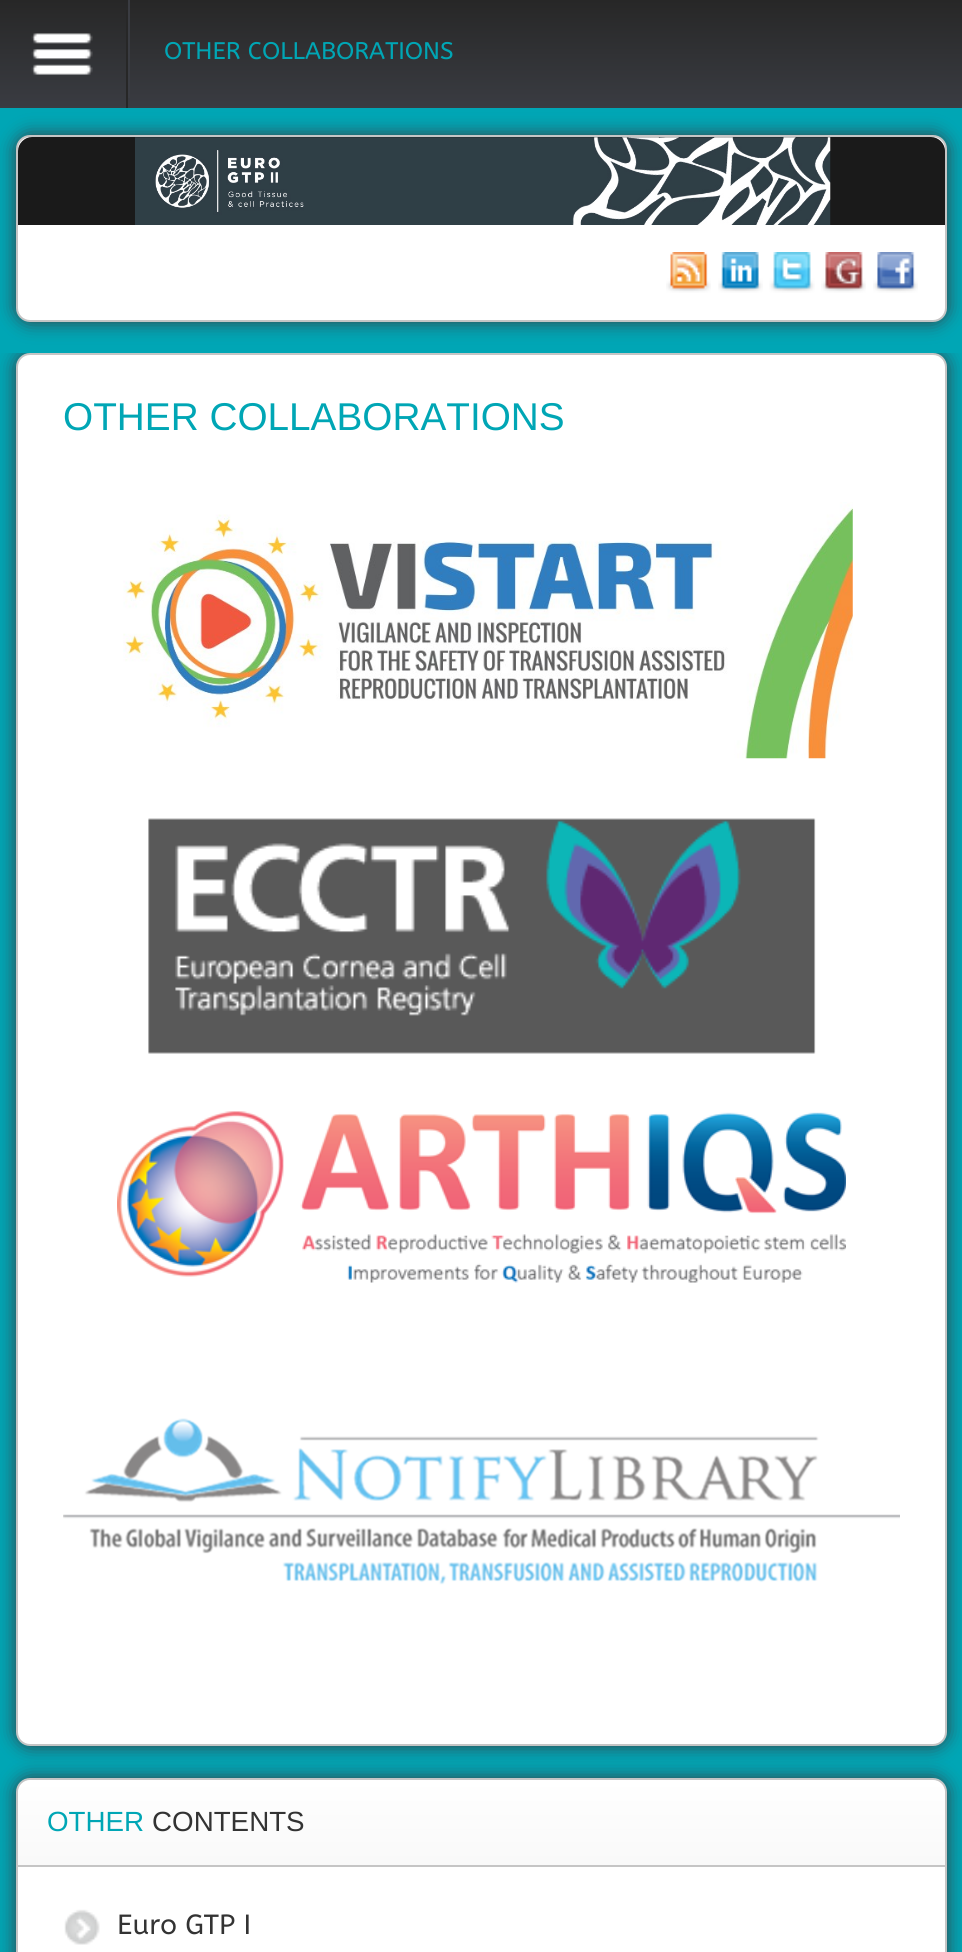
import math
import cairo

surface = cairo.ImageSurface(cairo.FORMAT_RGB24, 962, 1952)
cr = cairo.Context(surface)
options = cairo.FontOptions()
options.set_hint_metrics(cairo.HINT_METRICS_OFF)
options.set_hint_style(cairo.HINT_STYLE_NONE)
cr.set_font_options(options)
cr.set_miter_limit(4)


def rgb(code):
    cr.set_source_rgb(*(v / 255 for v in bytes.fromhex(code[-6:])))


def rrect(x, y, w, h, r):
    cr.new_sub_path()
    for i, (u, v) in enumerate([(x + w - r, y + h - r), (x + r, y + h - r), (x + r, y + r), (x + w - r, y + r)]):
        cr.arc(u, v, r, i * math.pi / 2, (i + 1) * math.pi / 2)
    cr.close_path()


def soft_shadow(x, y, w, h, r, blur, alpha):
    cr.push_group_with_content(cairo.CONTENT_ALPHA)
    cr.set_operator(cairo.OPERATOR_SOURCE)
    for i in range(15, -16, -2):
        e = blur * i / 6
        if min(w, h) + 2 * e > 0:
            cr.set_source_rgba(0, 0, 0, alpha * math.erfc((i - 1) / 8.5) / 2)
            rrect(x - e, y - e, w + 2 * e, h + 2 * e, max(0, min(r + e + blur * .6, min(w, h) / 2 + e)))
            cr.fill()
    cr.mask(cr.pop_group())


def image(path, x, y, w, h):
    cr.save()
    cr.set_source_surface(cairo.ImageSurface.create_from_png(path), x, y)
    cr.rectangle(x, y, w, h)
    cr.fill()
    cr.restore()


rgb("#00a6b5")
cr.paint()
rgb("#3a3c42")
soft_shadow(16, 135, 931, 187, 14, 9, 1)
gradient = cairo.LinearGradient(482, 0, 482, 108)
gradient.add_color_stop_rgba(0, 0.153, 0.153, 0.153, 1)
gradient.add_color_stop_rgba(1, 0.227, 0.235, 0.259, 1)
cr.set_source(gradient)
cr.rectangle(0, 0, 962, 108)
cr.fill()
rgb("#3a3c42")
cr.rectangle(128, 0, 2, 98)
cr.fill()
image("img/1.png", 31, 33, 62, 42)
rgb("#272727")
cr.rectangle(126, 10, 2, 98)
cr.fill()
rgb("#ffffff")
rrect(17, 136, 929, 185, 13)
cr.fill_preserve()
rgb("#c5c5c5")
cr.stroke()
rgb("#1a1a1a")
cr.new_path()
cr.move_to(32, 137)
cr.line_to(931, 137)
cr.curve_to(938.5, 137, 945, 143.5, 945, 151)
cr.line_to(945, 225)
cr.line_to(18, 225)
cr.line_to(18, 151)
cr.curve_to(18, 143.5, 24.5, 137, 32, 137)
cr.close_path()
cr.fill()
image("img/2.png", 135, 137, 696, 88)
image("img/3.png", 666, 252, 45, 41)
image("img/4.png", 718, 252, 45, 41)
image("img/5.png", 769, 252, 46, 41)
image("img/6.png", 821, 252, 45, 41)
image("img/7.png", 873, 252, 45, 41)
cr.save()
cr.rectangle(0, 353, 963, 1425)
cr.clip()
rgb("#3a3c42")
soft_shadow(16, 353, 931, 1393, 14, 9, 1)
cr.restore()
rgb("#ffffff")
rrect(17, 354, 929, 1391, 13)
cr.fill_preserve()
rgb("#c5c5c5")
cr.stroke()
image("img/8.png", 123, 502, 730, 257)
image("img/9.png", 148, 818, 668, 236)
image("img/10.png", 117, 1111, 729, 172)
image("img/11.png", 63, 1418, 837, 167)
rgb("#3a3c42")
soft_shadow(16, 1778, 931, 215, 14, 9, 1)
rgb("#ffffff")
rrect(17, 1779, 929, 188, 13)
cr.fill_preserve()
rgb("#c5c5c5")
cr.stroke()
gradient = cairo.LinearGradient(482, 1780, 482, 1865)
gradient.add_color_stop_rgba(0, 1, 1, 1, 1)
gradient.add_color_stop_rgba(1, 0.976, 0.976, 0.976, 1)
cr.set_source(gradient)
cr.new_path()
cr.move_to(32, 1780)
cr.line_to(931, 1780)
cr.curve_to(938.5, 1780, 945, 1786.5, 945, 1794)
cr.line_to(945, 1865)
cr.line_to(18, 1865)
cr.line_to(18, 1794)
cr.curve_to(18, 1786.5, 24.5, 1780, 32, 1780)
cr.close_path()
cr.fill()
rgb("#c5c5c5")
cr.rectangle(18, 1865, 927, 2)
cr.fill()
image("img/12.png", 64, 1909, 36, 36)
cr.select_font_face("ABeeZee")
cr.set_font_size(24)
rgb("#00a6b5")
cr.move_to(164, 59)
cr.show_text("OTHER COLLABORATIONS")
cr.select_font_face("Liberation Sans")
cr.set_font_size(38.75)
cr.move_to(63, 430)
cr.show_text("OTHER COLLABORATIONS")
cr.set_font_size(27.75)
cr.move_to(47, 1831)
cr.show_text("OTHER")
rgb("#333333")
cr.move_to(152, 1831)
cr.show_text("CONTENTS")
cr.select_font_face("ABeeZee")
cr.move_to(117, 1934)
cr.show_text("Euro GTP I")
surface.write_to_png("page.png")
